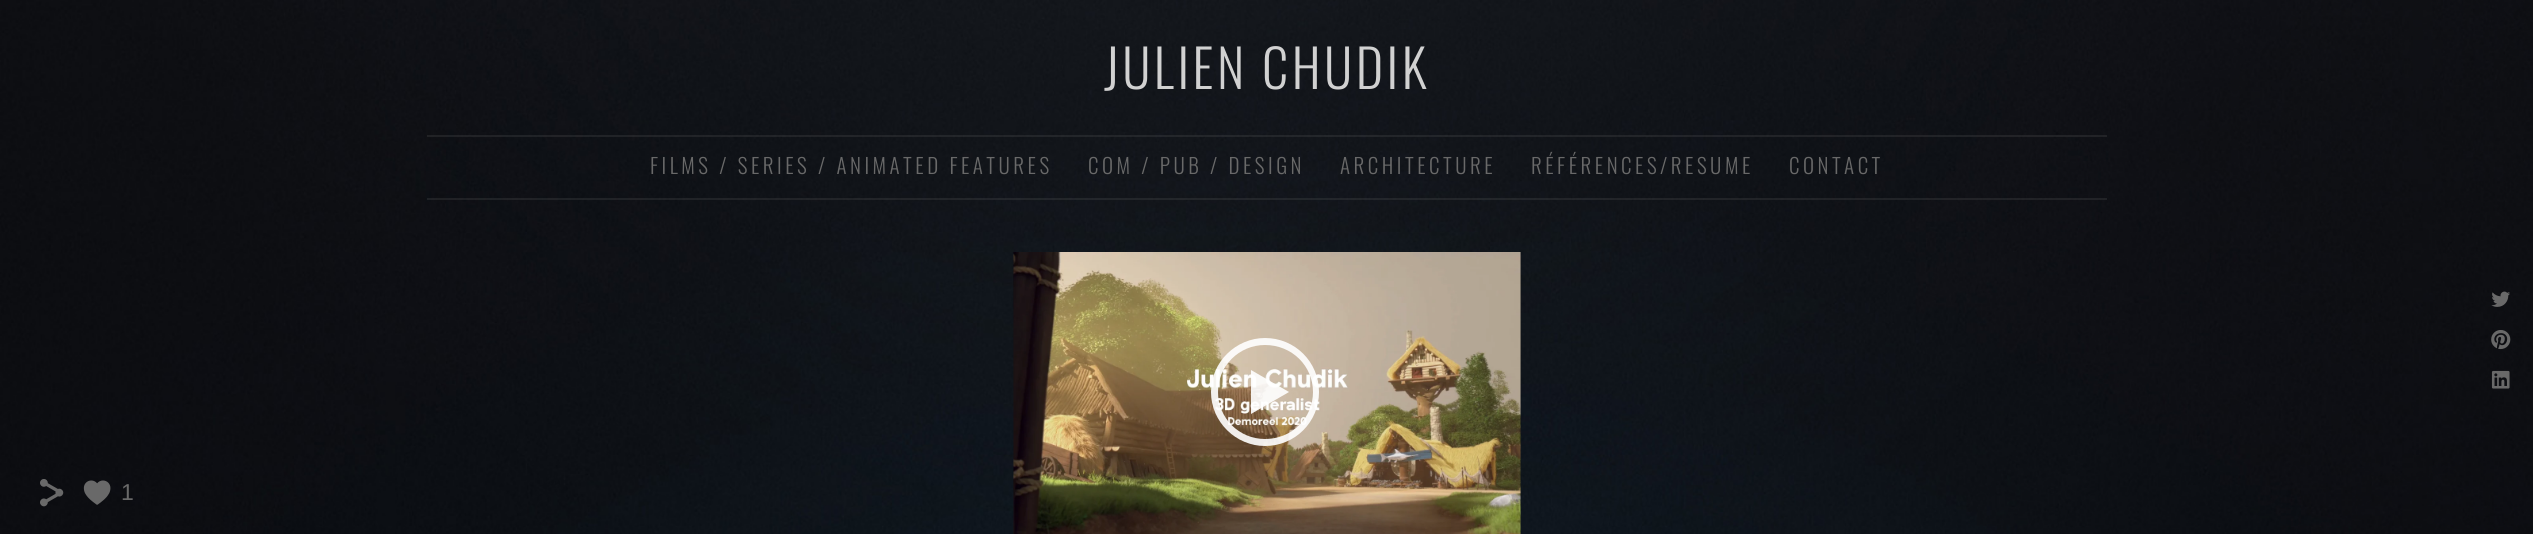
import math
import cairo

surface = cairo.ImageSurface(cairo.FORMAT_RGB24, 2533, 534)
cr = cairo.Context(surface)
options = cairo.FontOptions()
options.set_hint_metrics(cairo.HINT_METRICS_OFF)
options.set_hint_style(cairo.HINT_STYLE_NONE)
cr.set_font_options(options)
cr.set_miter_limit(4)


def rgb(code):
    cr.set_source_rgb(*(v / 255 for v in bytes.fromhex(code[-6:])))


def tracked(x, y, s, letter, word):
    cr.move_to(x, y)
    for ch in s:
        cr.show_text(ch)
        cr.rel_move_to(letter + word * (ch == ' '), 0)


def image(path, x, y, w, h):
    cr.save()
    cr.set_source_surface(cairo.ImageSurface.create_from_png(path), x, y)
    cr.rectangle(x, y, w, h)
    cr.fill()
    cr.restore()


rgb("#ffffff")
cr.paint()
image("img/1.png", 0, 0, 2533, 534)
cr.set_source_rgba(0.412, 0.412, 0.412, 0.2)
cr.rectangle(427, 135, 1680, 2)
cr.fill()
cr.rectangle(427, 198, 1680, 2)
cr.fill()
image("img/2.png", 1013, 252, 508, 282)
cr.set_source_rgba(1, 1, 1, 0.9)
cr.new_path()
cr.move_to(1265, 345)
cr.curve_to(1239, 345, 1218, 366, 1218, 392)
cr.curve_to(1218, 418, 1239, 439, 1265, 439)
cr.curve_to(1292, 439, 1313, 418, 1313, 392)
cr.curve_to(1313, 366, 1292, 345, 1265, 345)
cr.close_path()
cr.move_to(1265, 338)
cr.curve_to(1295, 338, 1319, 362, 1319, 392)
cr.curve_to(1319, 422, 1295, 446, 1265, 446)
cr.curve_to(1236, 446, 1211, 422, 1211, 392)
cr.curve_to(1211, 362, 1236, 338, 1265, 338)
cr.close_path()
cr.move_to(1251, 370)
cr.line_to(1251, 414)
cr.line_to(1289, 392)
cr.close_path()
cr.fill()
image("img/3.png", 2491, 291, 19, 16)
image("img/4.png", 2491, 330, 20, 20)
image("img/5.png", 2491, 370, 19, 19)
image("img/6.png", 40, 479, 24, 28)
image("img/7.png", 83, 480, 28, 25)
cr.select_font_face("Oswald Light")
cr.set_font_size(52.5)
rgb("#d1d1d1")
tracked(1104, 89, "JULIEN CHUDIK", 3.5, 0)
cr.set_font_size(21)
rgb("#696969")
for x, y, s in [
    (650, 174, "FILMS / SERIES / ANIMATED FEATURES"),
    (1088, 174, "COM / PUB / DESIGN"),
    (1340, 174, "ARCHITECTURE"),
    (1531, 174, "RÉFÉRENCES/RESUME"),
    (1789, 174, "CONTACT"),
]:
    tracked(x, y, s, 3.5, 0)
cr.select_font_face("Liberation Sans")
cr.set_font_size(23)
cr.move_to(121, 500)
cr.show_text("1")
surface.write_to_png("page.png")
